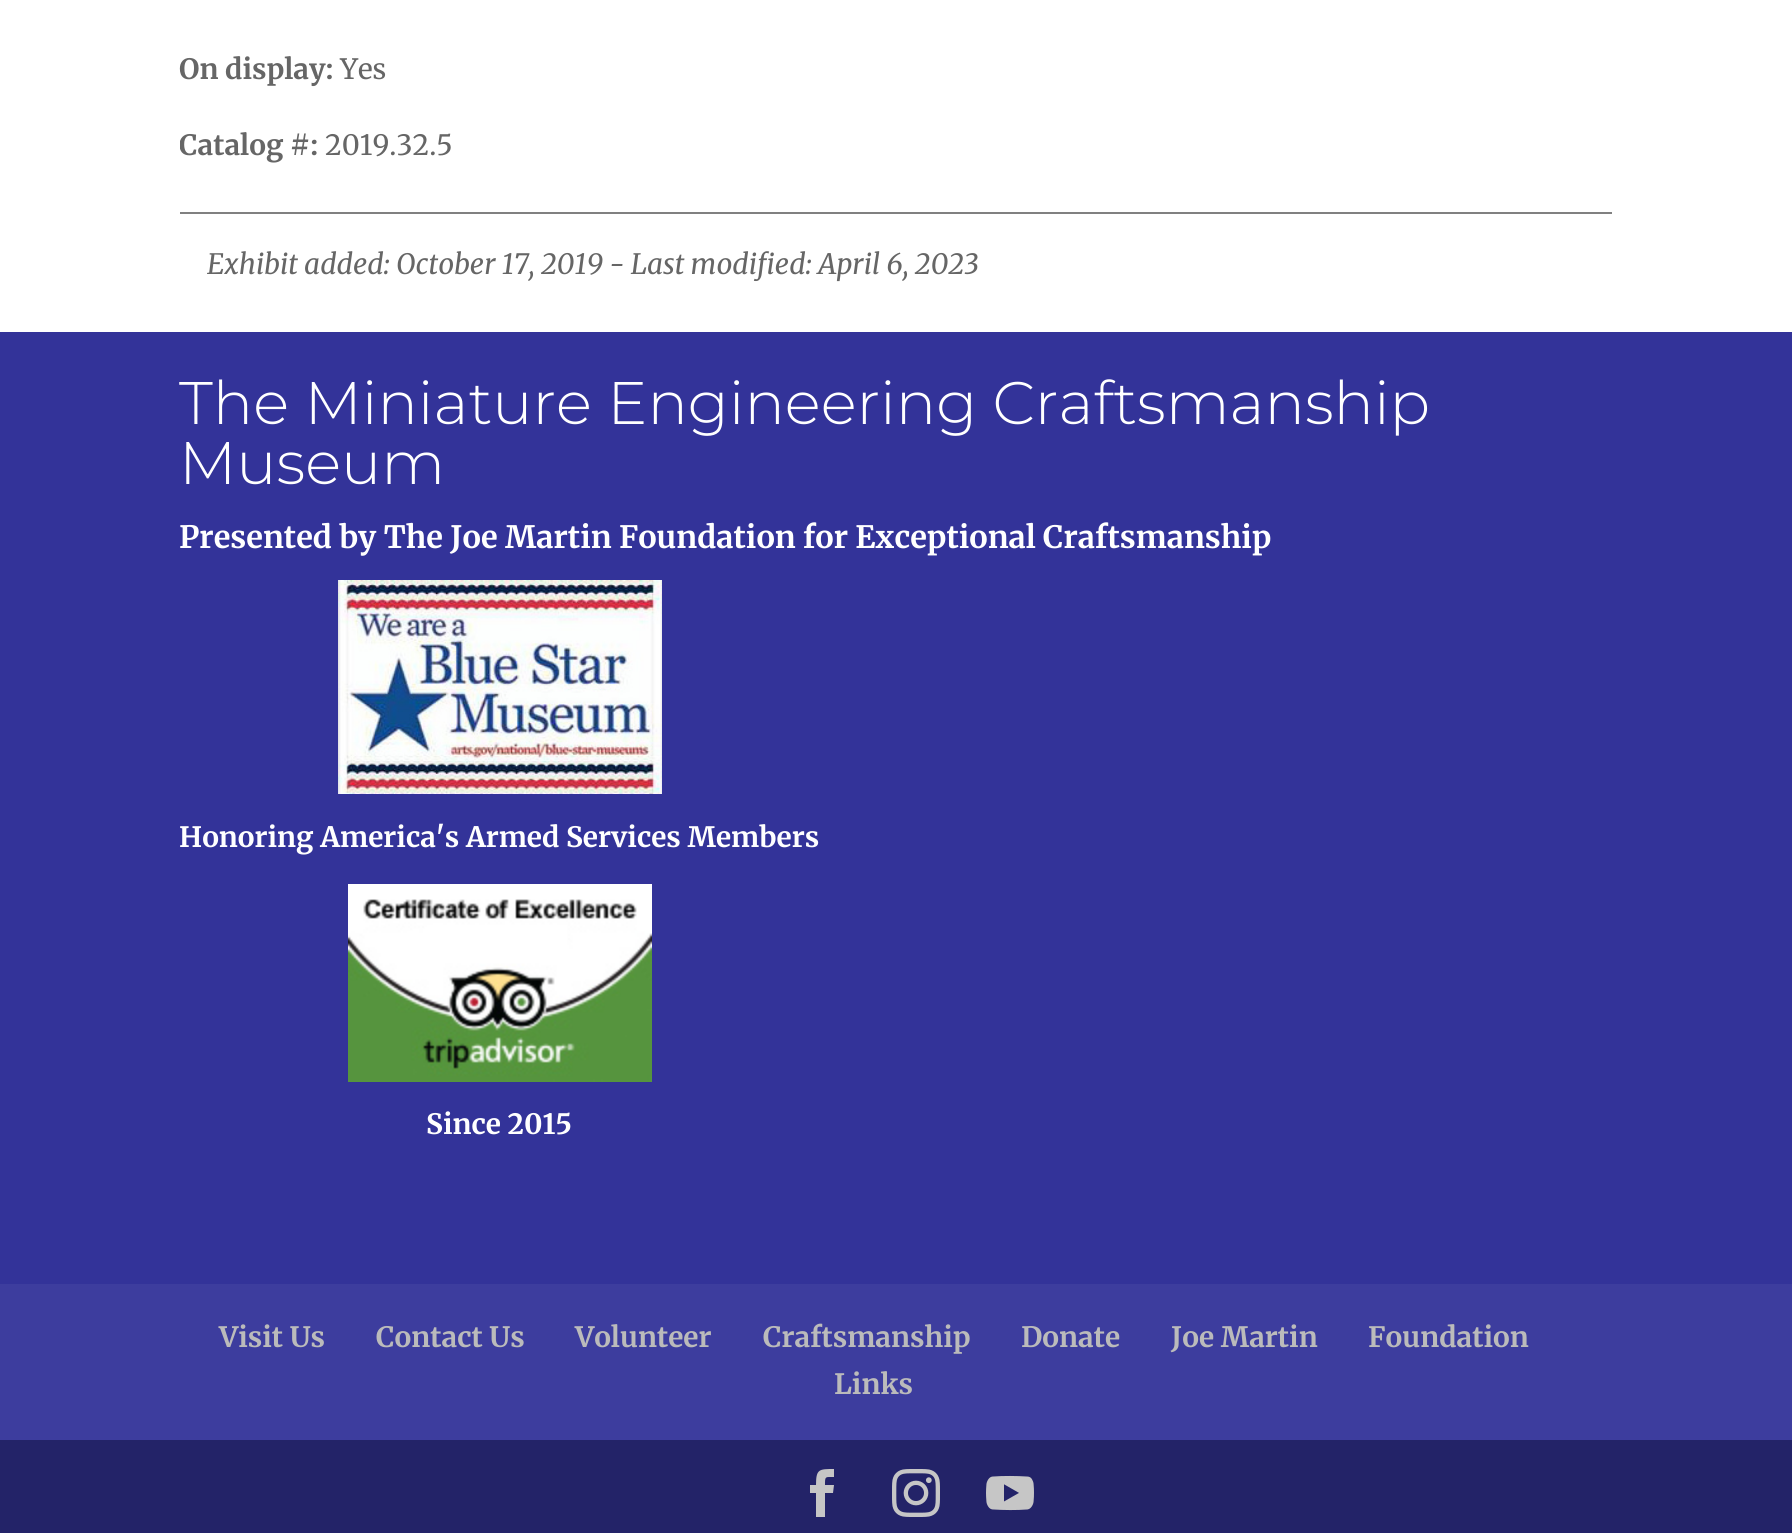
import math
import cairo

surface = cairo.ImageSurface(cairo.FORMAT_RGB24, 1792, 1533)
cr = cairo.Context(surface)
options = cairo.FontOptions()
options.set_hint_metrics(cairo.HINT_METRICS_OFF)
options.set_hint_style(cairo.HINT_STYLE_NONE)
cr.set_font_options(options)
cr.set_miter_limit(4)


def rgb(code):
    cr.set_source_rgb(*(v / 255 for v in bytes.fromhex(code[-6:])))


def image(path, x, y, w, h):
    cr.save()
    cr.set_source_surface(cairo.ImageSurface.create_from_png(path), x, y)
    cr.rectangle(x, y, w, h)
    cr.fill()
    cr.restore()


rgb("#ffffff")
cr.paint()
rgb("#808080")
cr.rectangle(180, 212, 1432, 2)
cr.fill()
rgb("#333399")
cr.rectangle(0, 332, 1792, 952)
cr.fill()
image("img/1.png", 338, 580, 324, 214)
image("img/2.png", 348, 884, 304, 198)
rgb("#3d3d9e")
cr.rectangle(0, 1284, 1792, 156)
cr.fill()
rgb("#232368")
cr.rectangle(0, 1440, 1792, 93)
cr.fill()
rgb("#c6c6c6")
cr.new_path()
cr.move_to(816, 1517)
cr.line_to(825, 1517)
cr.line_to(825, 1493)
cr.line_to(833, 1493)
cr.line_to(834, 1485)
cr.line_to(825, 1485)
cr.curve_to(825, 1476, 825, 1477, 834, 1477)
cr.line_to(834, 1469)
cr.curve_to(819, 1469, 816, 1469, 816, 1485)
cr.line_to(810, 1485)
cr.line_to(810, 1493)
cr.line_to(816, 1493)
cr.close_path()
cr.fill()
image("img/3.png", 892, 1469, 48, 48)
image("img/4.png", 986, 1475, 48, 36)
cr.select_font_face("Merriweather Light")
cr.set_font_size(28)
rgb("#666666")
cr.move_to(179, 79)
cr.show_text("On display:")
cr.select_font_face("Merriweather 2 Light")
cr.move_to(340, 79)
cr.show_text("Yes")
cr.save()
cr.rectangle(180, 0, 1432, 170)
cr.clip()
cr.select_font_face("Merriweather Light")
cr.move_to(179, 155)
cr.show_text("Catalog #:")
cr.restore()
cr.move_to(325, 155)
cr.show_text("2019.32.5")
cr.select_font_face("Merriweather Light", cairo.FONT_SLANT_ITALIC)
cr.move_to(207, 274)
cr.show_text("Exhibit added: October 17, 2019 - Last modified: April 6, 2023")
cr.select_font_face("Montserrat Thin")
cr.set_font_size(60)
rgb("#ffffff")
cr.move_to(179, 424)
cr.show_text("The Miniature Engineering Craftsmanship")
cr.move_to(179, 484)
cr.show_text("Museum")
cr.select_font_face("Merriweather Light")
cr.set_font_size(30.8)
cr.move_to(179, 548)
cr.show_text("Presented by The Joe Martin Foundation for Exceptional Craftsmanship")
cr.set_font_size(28)
cr.move_to(179, 847)
cr.show_text("Honoring America's Armed Services Members")
cr.move_to(426, 1134)
cr.show_text("Since 2015")
rgb("#bbbbbb")
for x, y, s in [
    (219, 1347, "Visit Us"),
    (376, 1347, "Contact Us"),
    (575, 1347, "Volunteer"),
    (763, 1347, "Craftsmanship"),
    (1021, 1347, "Donate"),
    (1171, 1347, "Joe Martin"),
    (1368, 1347, "Foundation"),
    (834, 1394, "Links"),
]:
    cr.move_to(x, y)
    cr.show_text(s)
surface.write_to_png("page.png")
